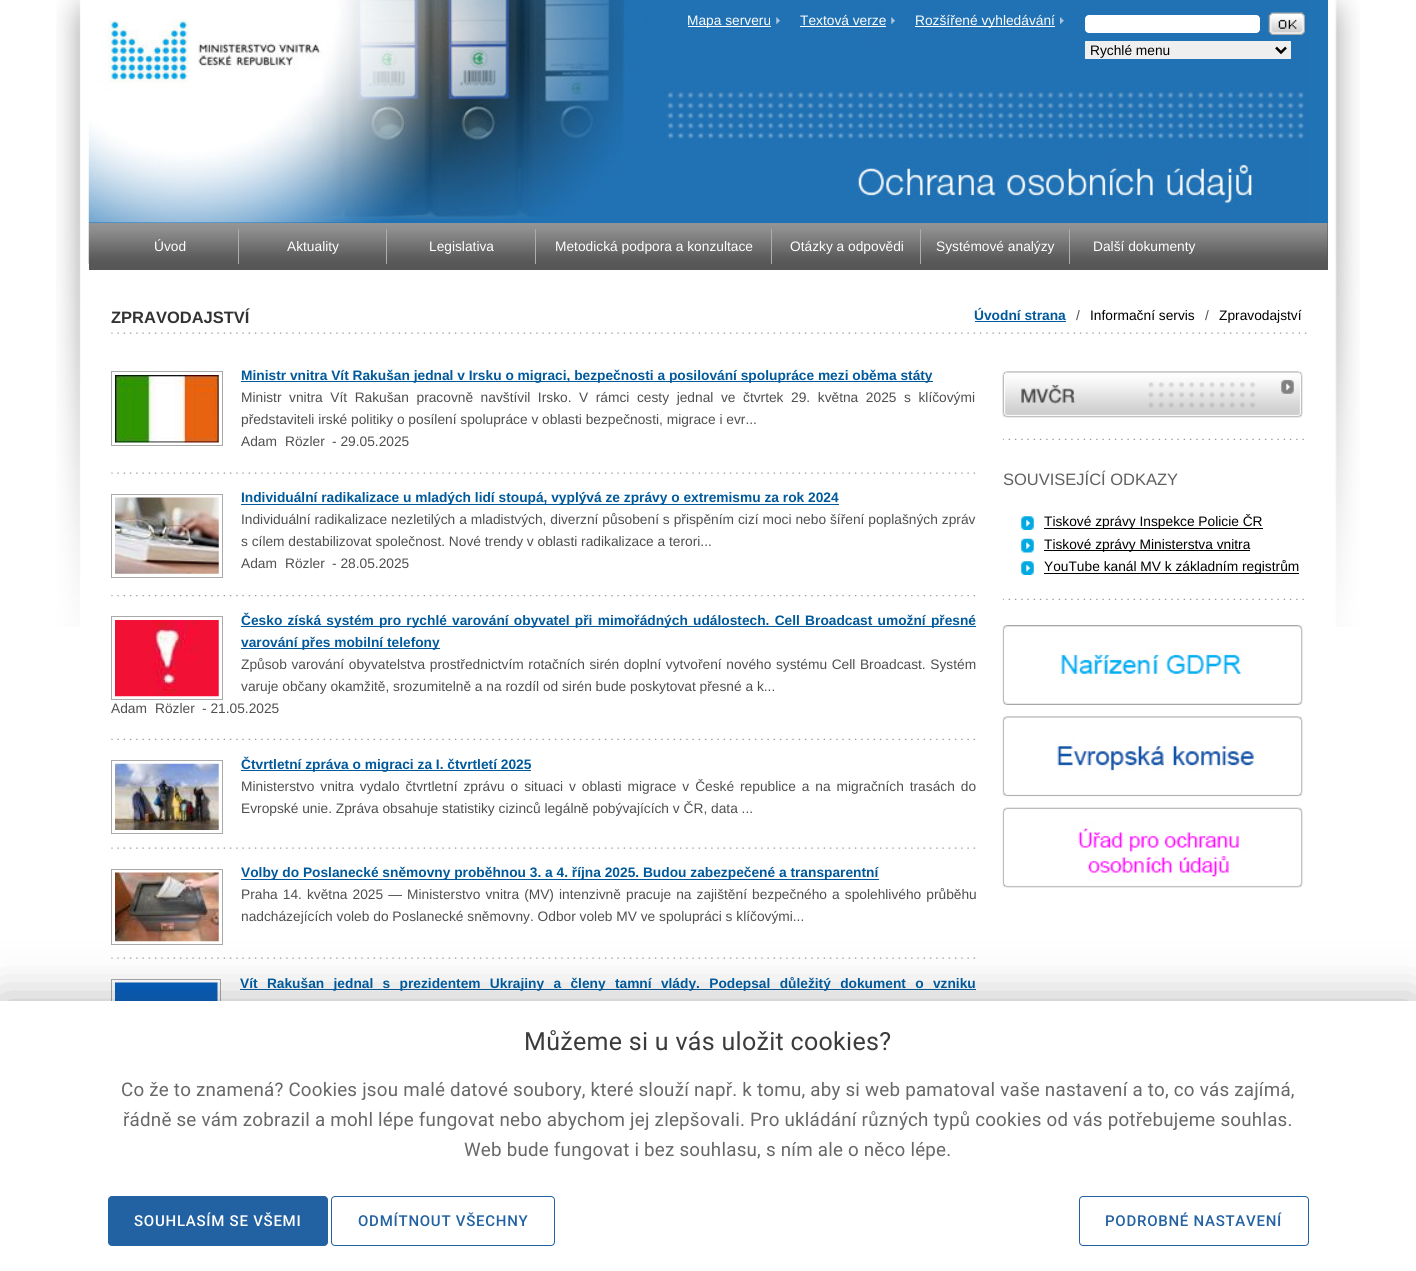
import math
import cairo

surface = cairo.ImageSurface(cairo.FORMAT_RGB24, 1416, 1271)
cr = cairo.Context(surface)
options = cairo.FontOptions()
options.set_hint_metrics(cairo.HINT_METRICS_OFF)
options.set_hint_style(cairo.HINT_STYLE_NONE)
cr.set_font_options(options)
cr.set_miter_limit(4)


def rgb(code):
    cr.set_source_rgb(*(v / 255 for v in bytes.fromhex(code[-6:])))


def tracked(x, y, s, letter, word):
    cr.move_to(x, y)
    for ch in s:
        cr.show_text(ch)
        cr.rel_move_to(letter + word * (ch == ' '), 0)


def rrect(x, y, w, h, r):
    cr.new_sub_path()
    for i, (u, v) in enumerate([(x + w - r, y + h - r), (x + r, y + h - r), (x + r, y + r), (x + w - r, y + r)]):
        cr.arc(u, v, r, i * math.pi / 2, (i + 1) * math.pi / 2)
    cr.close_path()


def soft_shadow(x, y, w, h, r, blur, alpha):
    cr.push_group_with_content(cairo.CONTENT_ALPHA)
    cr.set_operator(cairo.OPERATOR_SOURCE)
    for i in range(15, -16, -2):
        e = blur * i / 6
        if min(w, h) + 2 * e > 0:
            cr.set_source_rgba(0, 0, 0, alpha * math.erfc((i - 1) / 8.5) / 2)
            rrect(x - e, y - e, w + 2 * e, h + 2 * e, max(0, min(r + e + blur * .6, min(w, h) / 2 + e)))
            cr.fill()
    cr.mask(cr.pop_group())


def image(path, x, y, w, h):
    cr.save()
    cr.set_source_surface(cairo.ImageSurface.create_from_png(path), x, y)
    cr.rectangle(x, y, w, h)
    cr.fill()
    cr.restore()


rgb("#ffffff")
cr.paint()
image("img/1.png", 56, 0, 1304, 627)
rgb("#575757")
cr.rectangle(89, 223, 1239, 47)
cr.fill()
image("img/6.png", 88, 222, 1240, 42)
rgb("#2073b5")
cr.rectangle(89, 0, 1239, 223)
cr.fill()
image("img/2.png", 88, 0, 1221, 223)
rgb("#ffffff")
cr.rectangle(688, 26, 83, 1)
cr.fill()
image("img/3.png", 776, 17, 4, 7)
cr.rectangle(800, 26, 86, 1)
cr.fill()
image("img/3.png", 891, 17, 4, 7)
cr.rectangle(915, 26, 140, 1)
cr.fill()
image("img/4.png", 1060, 17, 4, 7)
rrect(1085, 15, 175, 18, 4)
cr.fill()
image("img/5.png", 1268, 12, 37, 23)
rgb("#efefef")
cr.rectangle(1085, 41, 206, 18)
cr.fill()
cr.new_path()
cr.move_to(1276, 47.5)
cr.line_to(1281, 52.5)
cr.line_to(1286, 47.5)
rgb("#000000")
cr.set_line_width(2.5)
cr.stroke()
for x, y, w, h, color in [
    (238, 229, 1, 35, "#adadad"),
    (386, 229, 1, 35, "#adadad"),
    (535, 229, 1, 35, "#adadad"),
    (771, 229, 1, 35, "#adadad"),
    (920, 229, 1, 35, "#adadad"),
    (1069, 229, 1, 35, "#adadad"),
]:
    rgb(color)
    cr.rectangle(x, y, w, h)
    cr.fill()
image("img/7.png", 111, 332, 1196, 2)
rgb("#00599b")
cr.rectangle(975, 321, 91, 1)
cr.fill()
image("img/8.png", 111, 472, 865, 2)
cr.rectangle(111.5, 371.5, 111, 74)
rgb("#a9a9a9")
cr.set_line_width(1)
cr.stroke()
image("img/9.png", 115, 375, 104, 68)
rgb("#00599b")
cr.rectangle(241, 381, 692, 1)
cr.fill()
image("img/10.png", 111, 595, 865, 2)
cr.rectangle(111.5, 494.5, 111, 83)
rgb("#a9a9a9")
cr.stroke()
image("img/11.png", 115, 497, 104, 77)
rgb("#00599b")
cr.rectangle(241, 504, 598, 1)
cr.fill()
image("img/12.png", 111, 738, 865, 2)
cr.rectangle(111.5, 616.5, 111, 83)
rgb("#a9a9a9")
cr.stroke()
image("img/13.png", 115, 620, 104, 77)
rgb("#00599b")
cr.rectangle(241, 626, 735, 1)
cr.fill()
cr.rectangle(241, 648, 199, 1)
cr.fill()
image("img/8.png", 111, 847, 865, 2)
cr.rectangle(111.5, 760.5, 111, 73)
rgb("#a9a9a9")
cr.stroke()
image("img/14.png", 115, 763, 104, 67)
rgb("#00599b")
cr.rectangle(241, 770, 290, 1)
cr.fill()
image("img/8.png", 111, 957, 865, 2)
cr.rectangle(111.5, 869.5, 111, 75)
rgb("#a9a9a9")
cr.stroke()
image("img/15.png", 115, 872, 104, 70)
rgb("#00599b")
cr.rectangle(241, 879, 638, 1)
cr.fill()
cr.rectangle(111.5, 979.5, 109, 83)
rgb("#a9a9a9")
cr.stroke()
image("img/16.png", 115, 982, 103, 19)
rgb("#00599b")
cr.rectangle(240, 989, 736, 1)
cr.fill()
image("img/17.png", 1002, 438, 302, 2)
image("img/18.png", 1002, 371, 301, 47)
image("img/17.png", 1002, 598, 302, 2)
image("img/19.png", 1021, 516, 13, 14)
rgb("#000000")
cr.rectangle(1044, 528, 219, 1)
cr.fill()
image("img/20.png", 1021, 538, 13, 15)
cr.rectangle(1044, 550, 206, 1)
cr.fill()
image("img/19.png", 1021, 561, 13, 14)
cr.rectangle(1044, 573, 255, 1)
cr.fill()
image("img/21.png", 1002, 625, 301, 80)
image("img/22.png", 1002, 716, 301, 81)
image("img/23.png", 1002, 807, 301, 81)
rgb("#3b3b3b")
soft_shadow(0, 1003, 1416, 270, 0, 25, 0.4)
rgb("#ffffff")
cr.rectangle(0, 1001, 1416, 270)
cr.fill()
rgb("#2362a2")
rrect(108.5, 1196.5, 219, 49, 3.5)
cr.fill_preserve()
cr.stroke()
rrect(331.5, 1196.5, 223, 49, 3.5)
cr.stroke()
rrect(1079.5, 1196.5, 229, 49, 3.5)
cr.stroke()
cr.select_font_face("Liberation Sans")
cr.set_font_size(13.75)
rgb("#ffffff")
for x, y, s in [
    (687, 25, "Mapa serveru"),
    (800, 25, "Textová verze"),
    (915, 25, "Rozšířené vyhledávání"),
]:
    cr.move_to(x, y)
    cr.show_text(s)
rgb("#000000")
cr.move_to(1090, 55)
cr.show_text("Rychlé menu")
rgb("#ffffff")
for x, y, s in [
    (154, 251, "Úvod"),
    (287, 251, "Aktuality"),
    (429, 251, "Legislativa"),
    (555, 251, "Metodická podpora a konzultace"),
    (790, 251, "Otázky a odpovědi"),
    (936, 251, "Systémové analýzy"),
    (1093, 251, "Další dokumenty"),
]:
    cr.move_to(x, y)
    cr.show_text(s)
cr.select_font_face("Liberation Sans", cairo.FONT_SLANT_NORMAL, cairo.FONT_WEIGHT_BOLD)
cr.set_font_size(16.5)
rgb("#333333")
cr.move_to(111, 323)
cr.show_text("ZPRAVODAJSTVÍ")
cr.set_font_size(13.75)
rgb("#00599b")
cr.move_to(974, 320)
cr.show_text("Úvodní strana")
cr.select_font_face("Liberation Sans")
rgb("#4f4f4f")
cr.move_to(1076, 320)
cr.show_text("/")
rgb("#000000")
cr.move_to(1090, 320)
cr.show_text("Informační servis")
rgb("#4f4f4f")
cr.move_to(1205, 320)
cr.show_text("/")
rgb("#000000")
cr.move_to(1219, 320)
cr.show_text("Zpravodajství")
cr.select_font_face("Liberation Sans", cairo.FONT_SLANT_NORMAL, cairo.FONT_WEIGHT_BOLD)
rgb("#00599b")
cr.move_to(241, 380)
cr.show_text("Ministr vnitra Vít Rakušan jednal v Irsku o migraci, bezpečnosti a posilování spolupráce mezi oběma státy")
cr.select_font_face("Liberation Sans")
rgb("#4f4f4f")
tracked(241, 402, "Ministr vnitra Vít Rakušan pracovně navštívil Irsko. V rámci cesty jednal ve čtvrtek 29. května 2025 s klíčovými", 0, 3.75)
for x, y, s in [
    (241, 424, "představiteli irské politiky o posílení spolupráce v oblasti bezpečnosti, migrace i evr..."),
    (241, 446, "Adam"),
    (285, 446, "Rözler"),
    (332, 446, "- 29.05.2025"),
]:
    cr.move_to(x, y)
    cr.show_text(s)
cr.select_font_face("Liberation Sans", cairo.FONT_SLANT_NORMAL, cairo.FONT_WEIGHT_BOLD)
rgb("#00599b")
cr.move_to(241, 502)
cr.show_text("Individuální radikalizace u mladých lidí stoupá, vyplývá ze zprávy o extremismu za rok 2024")
cr.select_font_face("Liberation Sans")
rgb("#4f4f4f")
tracked(241, 524, "Individuální radikalizace nezletilých a mladistvých, diverzní působení s přispěním cizí moci nebo šíření poplašných zpráv", 0, 0.1)
for x, y, s in [
    (241, 546, "s cílem destabilizovat společnost. Nové trendy v oblasti radikalizace a terori..."),
    (241, 568, "Adam"),
    (285, 568, "Rözler"),
    (332, 568, "- 28.05.2025"),
]:
    cr.move_to(x, y)
    cr.show_text(s)
cr.select_font_face("Liberation Sans", cairo.FONT_SLANT_NORMAL, cairo.FONT_WEIGHT_BOLD)
rgb("#00599b")
tracked(241, 625, "Česko získá systém pro rychlé varování obyvatel při mimořádných událostech. Cell Broadcast umožní přesné", 0, 1.4)
cr.move_to(241, 647)
cr.show_text("varování přes mobilní telefony")
cr.select_font_face("Liberation Sans")
rgb("#4f4f4f")
tracked(241, 669, "Způsob varování obyvatelstva prostřednictvím rotačních sirén doplní vytvoření nového systému Cell Broadcast. Systém", 0, 0.75)
for x, y, s in [
    (241, 691, "varuje občany okamžitě, srozumitelně a na rozdíl od sirén bude poskytovat přesné a k..."),
    (111, 713, "Adam"),
    (155, 713, "Rözler"),
    (202, 713, "- 21.05.2025"),
]:
    cr.move_to(x, y)
    cr.show_text(s)
cr.select_font_face("Liberation Sans", cairo.FONT_SLANT_NORMAL, cairo.FONT_WEIGHT_BOLD)
rgb("#00599b")
cr.move_to(241, 769)
cr.show_text("Čtvrtletní zpráva o migraci za I. čtvrtletí 2025")
cr.select_font_face("Liberation Sans")
rgb("#4f4f4f")
tracked(241, 791, "Ministerstvo vnitra vydalo čtvrtletní zprávu o situaci v oblasti migrace v České republice a na migračních trasách do", 0, 2.1)
cr.move_to(241, 813)
cr.show_text("Evropské unie. Zpráva obsahuje statistiky cizinců legálně pobývajících v ČR, data ...")
cr.select_font_face("Liberation Sans", cairo.FONT_SLANT_NORMAL, cairo.FONT_WEIGHT_BOLD)
rgb("#00599b")
cr.move_to(241, 877)
cr.show_text("Volby do Poslanecké sněmovny proběhnou 3. a 4. října 2025. Budou zabezpečené a transparentní")
cr.select_font_face("Liberation Sans")
rgb("#4f4f4f")
tracked(241, 899, "Praha 14. května 2025 — Ministerstvo vnitra (MV) intenzivně pracuje na zajištění bezpečného a spolehlivého průběhu", 0, 1.25)
cr.move_to(241, 921)
cr.show_text("nadcházejících voleb do Poslanecké sněmovny. Odbor voleb MV ve spolupráci s klíčovými...")
cr.select_font_face("Liberation Sans", cairo.FONT_SLANT_NORMAL, cairo.FONT_WEIGHT_BOLD)
rgb("#00599b")
tracked(240, 988, "Vít Rakušan jednal s prezidentem Ukrajiny a členy tamní vlády. Podepsal důležitý dokument o vzniku", 0, 5.5)
cr.select_font_face("Liberation Sans")
cr.set_font_size(16.5)
rgb("#5f6060")
cr.move_to(1003, 485)
cr.show_text("SOUVISEJÍCÍ ODKAZY")
cr.set_font_size(13.75)
rgb("#000000")
for x, y, s in [
    (1044, 526, "Tiskové zprávy Inspekce Policie ČR"),
    (1044, 549, "Tiskové zprávy Ministerstva vnitra"),
    (1044, 571, "YouTube kanál MV k základním registrům"),
]:
    cr.move_to(x, y)
    cr.show_text(s)
cr.select_font_face("Roboto")
cr.set_font_size(25)
rgb("#3b3b3b")
tracked(524, 1050, "Můžeme si u vás uložit cookies?", 0.3, 0)
cr.set_font_size(18.75)
rgb("#686868")
for x, y, s in [
    (121, 1096, "Co že to znamená? Cookies jsou malé datové soubory, které slouží např. k tomu, aby si web pamatoval vaše nastavení a to, co vás zajímá,"),
    (123, 1126, "řádně se vám zobrazil a mohl lépe fungovat nebo abychom jej zlepšovali. Pro ukládání různých typů cookies od vás potřebujeme souhlas."),
    (464, 1156, "Web bude fungovat i bez souhlasu, s ním ale o něco lépe."),
]:
    tracked(x, y, s, 0.23, 0)
cr.select_font_face("Roboto Medium")
cr.set_font_size(15)
rgb("#ffffff")
tracked(134, 1226, "SOUHLASÍM SE VŠEMI", 0.75, 0)
rgb("#2362a2")
tracked(358, 1226, "ODMÍTNOUT VŠECHNY", 0.75, 0)
tracked(1105, 1226, "PODROBNÉ NASTAVENÍ", 0.75, 0)
surface.write_to_png("page.png")
